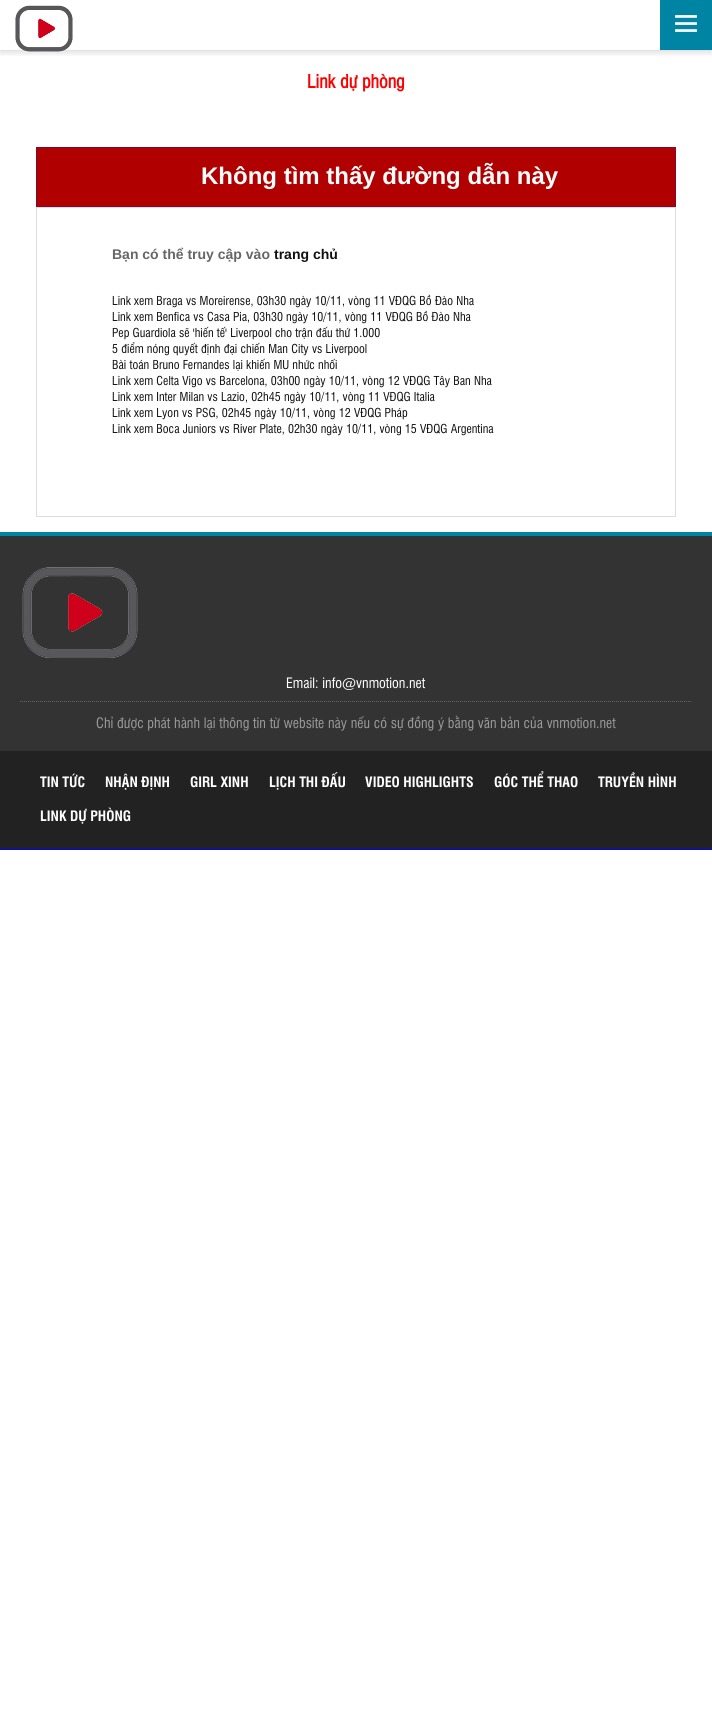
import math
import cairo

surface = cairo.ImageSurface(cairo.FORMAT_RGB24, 712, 1716)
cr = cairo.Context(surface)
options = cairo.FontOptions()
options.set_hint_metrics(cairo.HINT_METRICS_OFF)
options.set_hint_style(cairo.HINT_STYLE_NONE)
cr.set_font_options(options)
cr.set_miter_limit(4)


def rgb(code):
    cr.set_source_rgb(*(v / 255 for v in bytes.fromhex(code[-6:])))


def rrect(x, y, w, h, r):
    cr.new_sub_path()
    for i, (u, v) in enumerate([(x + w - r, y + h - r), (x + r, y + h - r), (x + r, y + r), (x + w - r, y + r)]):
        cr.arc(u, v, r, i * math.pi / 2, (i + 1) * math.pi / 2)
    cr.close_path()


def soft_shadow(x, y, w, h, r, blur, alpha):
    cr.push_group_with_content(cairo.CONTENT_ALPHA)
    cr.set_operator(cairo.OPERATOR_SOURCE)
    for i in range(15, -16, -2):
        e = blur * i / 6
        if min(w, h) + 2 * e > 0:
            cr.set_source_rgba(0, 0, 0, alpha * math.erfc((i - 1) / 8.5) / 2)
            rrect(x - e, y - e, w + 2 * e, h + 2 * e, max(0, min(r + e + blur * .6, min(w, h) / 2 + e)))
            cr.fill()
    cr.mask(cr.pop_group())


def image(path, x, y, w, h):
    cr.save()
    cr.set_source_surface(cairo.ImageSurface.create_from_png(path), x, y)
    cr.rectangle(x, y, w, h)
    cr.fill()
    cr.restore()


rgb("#ffffff")
cr.paint()
cr.save()
cr.rectangle(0, 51, 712, 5)
cr.clip()
rgb("#000000")
soft_shadow(0, 3, 712, 51, 0, 2.5, 0.1)
cr.restore()
rgb("#e2e2e2")
cr.rectangle(0, 50, 712, 1)
cr.fill()
image("img/1.png", 15, 5, 58, 47)
rgb("#0084a3")
cr.rectangle(660, 0, 52, 50)
cr.fill()
image("img/2.png", 675, 15, 22, 17)
rgb("#b00000")
cr.rectangle(36.5, 147.5, 639, 59)
cr.fill_preserve()
rgb("#780b32")
cr.set_line_width(1)
cr.stroke()
cr.rectangle(36.5, 207.5, 639, 309)
rgb("#dcdcdc")
cr.stroke()
for x, y, w, h, color in [
    (0, 751, 712, 98, "#222222"),
    (0, 532, 712, 4, "#0084a3"),
    (0, 536, 712, 215, "#333333"),
]:
    rgb(color)
    cr.rectangle(x, y, w, h)
    cr.fill()
image("img/3.png", 22, 567, 116, 91)
cr.new_path()
cr.move_to(20, 701.5)
cr.line_to(692, 701.5)
rgb("#666666")
cr.set_dash([1, 1])
cr.stroke()
rgb("#0000ff")
cr.rectangle(0, 849, 712, 1)
cr.fill()
cr.select_font_face("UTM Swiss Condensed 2", cairo.FONT_SLANT_NORMAL, cairo.FONT_WEIGHT_BOLD)
cr.set_font_size(18)
rgb("#ff0000")
cr.move_to(307, 88)
cr.show_text("Link dự phòng")
cr.select_font_face("Liberation Sans", cairo.FONT_SLANT_NORMAL, cairo.FONT_WEIGHT_BOLD)
cr.set_font_size(24)
rgb("#ffffff")
cr.move_to(201, 184)
cr.show_text("Không tìm thấy đường dẫn này")
cr.set_font_size(14)
rgb("#666666")
cr.move_to(112, 259)
cr.show_text("Bạn có thể truy cập vào")
rgb("#111111")
cr.move_to(274, 259)
cr.show_text("trang chủ")
cr.select_font_face("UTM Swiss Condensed")
cr.set_font_size(12)
for x, y, s in [
    (112, 305, "Link xem Braga vs Moreirense, 03h30 ngày 10/11, vòng 11 VĐQG Bồ Đào Nha"),
    (112, 321, "Link xem Benfica vs Casa Pia, 03h30 ngày 10/11, vòng 11 VĐQG Bồ Đào Nha"),
    (112, 337, "Pep Guardiola sẽ 'hiến tế' Liverpool cho trận đấu thứ 1.000"),
    (112, 353, "5 điểm nóng quyết định đại chiến Man City vs Liverpool"),
    (112, 369, "Bài toán Bruno Fernandes lại khiến MU nhức nhối"),
    (112, 385, "Link xem Celta Vigo vs Barcelona, 03h00 ngày 10/11, vòng 12 VĐQG Tây Ban Nha"),
    (112, 401, "Link xem Inter Milan vs Lazio, 02h45 ngày 10/11, vòng 11 VĐQG Italia"),
    (112, 417, "Link xem Lyon vs PSG, 02h45 ngày 10/11, vòng 12 VĐQG Pháp"),
    (112, 433, "Link xem Boca Juniors vs River Plate, 02h30 ngày 10/11, vòng 15 VĐQG Argentina"),
]:
    cr.move_to(x, y)
    cr.show_text(s)
cr.set_font_size(14)
rgb("#ffffff")
cr.move_to(286, 688)
cr.show_text("Email: info@vnmotion.net")
rgb("#999999")
cr.move_to(96, 728)
cr.show_text("Chỉ được phát hành lại thông tin từ website này nếu có sự đồng ý bằng văn bản của vnmotion.net")
cr.select_font_face("UTM Swiss Condensed", cairo.FONT_SLANT_NORMAL, cairo.FONT_WEIGHT_BOLD)
rgb("#ffffff")
for x, y, s in [
    (40, 787, "TIN TỨC"),
    (105, 787, "NHẬN ĐỊNH"),
    (190, 787, "GIRL XINH"),
    (269, 787, "LỊCH THI ĐẤU"),
    (365, 787, "VIDEO HIGHLIGHTS"),
    (494, 787, "GÓC THỂ THAO"),
    (598, 787, "TRUYỀN HÌNH"),
    (40, 821, "LINK DỰ PHÒNG"),
]:
    cr.move_to(x, y)
    cr.show_text(s)
surface.write_to_png("page.png")
